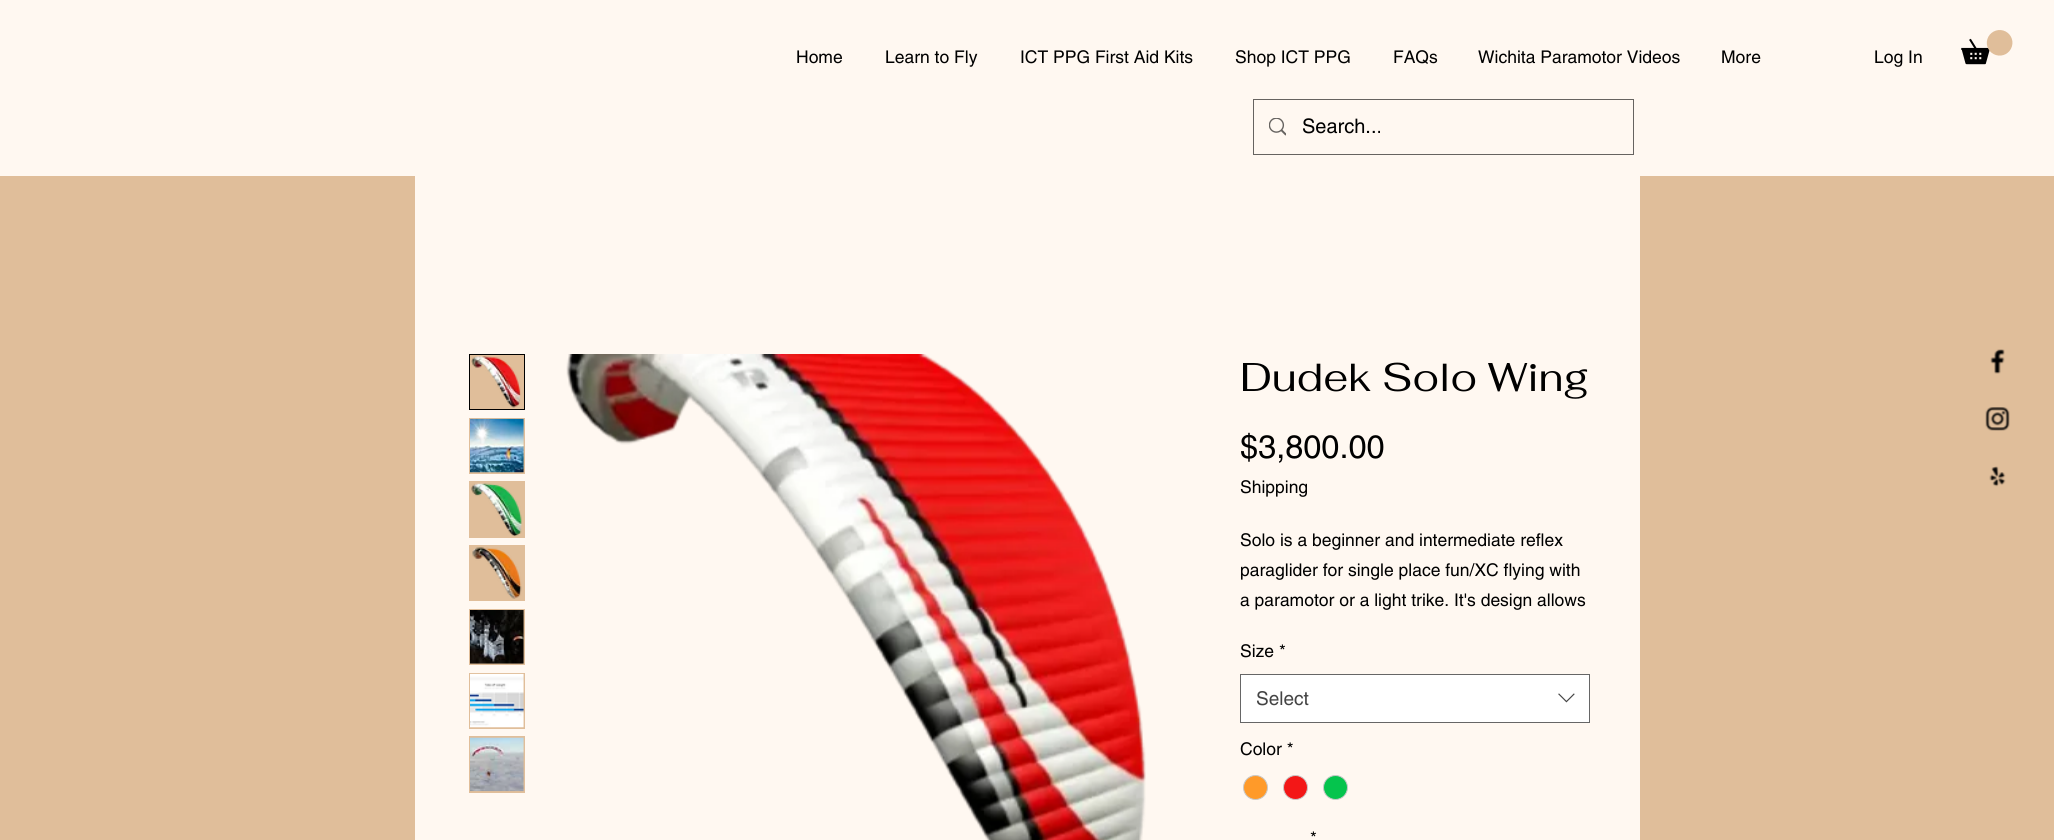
import math
import cairo

surface = cairo.ImageSurface(cairo.FORMAT_RGB24, 2054, 840)
cr = cairo.Context(surface)
options = cairo.FontOptions()
options.set_hint_metrics(cairo.HINT_METRICS_OFF)
options.set_hint_style(cairo.HINT_STYLE_NONE)
cr.set_font_options(options)
cr.set_miter_limit(4)


def rgb(code):
    cr.set_source_rgb(*(v / 255 for v in bytes.fromhex(code[-6:])))


def image(path, x, y, w, h):
    cr.save()
    cr.set_source_surface(cairo.ImageSurface.create_from_png(path), x, y)
    cr.rectangle(x, y, w, h)
    cr.fill()
    cr.restore()


rgb("#fff8f1")
cr.paint()
image("img/1.png", 1961, 30, 52, 35)
cr.rectangle(1253.5, 99.5, 380, 55)
rgb("#666360")
cr.set_line_width(1)
cr.stroke()
image("img/2.png", 1269, 118, 17, 18)
rgb("#e0be9a")
cr.rectangle(0, 176, 2054, 664)
cr.fill()
rgb("#fff8f1")
cr.rectangle(415, 176, 1225, 664)
cr.fill()
rgb("#e0be9a")
cr.rectangle(469.5, 354.5, 55, 55)
cr.fill_preserve()
rgb("#000000")
cr.stroke()
image("img/3.png", 471, 356, 50, 52)
rgb("#e0be9a")
cr.rectangle(469, 418, 56, 56)
cr.fill()
image("img/4.png", 470, 418, 54, 55)
cr.rectangle(469, 481, 56, 57)
cr.fill()
image("img/5.png", 471, 483, 51, 54)
cr.rectangle(469, 545, 56, 56)
cr.fill()
image("img/6.png", 472, 547, 50, 52)
cr.rectangle(469, 609, 56, 56)
cr.fill()
image("img/7.png", 470, 610, 54, 54)
cr.rectangle(469, 673, 56, 56)
cr.fill()
image("img/8.png", 470, 673, 54, 55)
cr.rectangle(469, 736, 56, 57)
cr.fill()
image("img/9.png", 470, 737, 54, 55)
image("img/10.png", 566, 354, 580, 486)
rgb("#ffffff")
cr.rectangle(1240.5, 674.5, 349, 48)
cr.fill_preserve()
rgb("#666666")
cr.stroke()
image("img/11.png", 1558, 693, 17, 10)
rgb("#ff9a29")
cr.arc(1255.5, 787.5, 12, 0, 2 * math.pi)
cr.fill_preserve()
rgb("#c9c9c9")
cr.stroke()
rgb("#f31717")
cr.arc(1295.5, 787.5, 12, 0, 2 * math.pi)
cr.fill_preserve()
rgb("#c9c9c9")
cr.stroke()
rgb("#05c44d")
cr.arc(1335.5, 787.5, 12, 0, 2 * math.pi)
cr.fill_preserve()
rgb("#c9c9c9")
cr.stroke()
image("img/12.png", 1990, 349, 15, 25)
image("img/13.png", 1985, 407, 25, 24)
image("img/14.png", 1989, 466, 17, 21)
cr.select_font_face("helvetica")
cr.set_font_size(17.5)
rgb("#000000")
for x, y, s in [
    (796, 63, "Home"),
    (885, 63, "Learn to Fly"),
    (1020, 63, "ICT PPG First Aid Kits"),
    (1235, 63, "Shop ICT PPG"),
    (1393, 63, "FAQs"),
    (1478, 63, "Wichita Paramotor Videos"),
    (1721, 63, "More"),
    (1874, 63, "Log In"),
]:
    cr.move_to(x, y)
    cr.show_text(s)
cr.set_font_size(20)
cr.move_to(1302, 133)
cr.show_text("Search...")
cr.select_font_face("Fahkwang")
cr.set_font_size(40)
cr.move_to(1240, 391)
cr.show_text("Dudek Solo Wing")
cr.select_font_face("helvetica")
cr.set_font_size(32.5)
cr.move_to(1240, 458)
cr.show_text("$3,800.00")
cr.set_font_size(17.5)
for x, y, s in [
    (1240, 493, "Shipping"),
    (1240, 546, "Solo is a beginner and intermediate reflex"),
    (1240, 576, "paraglider for single place fun/XC flying with"),
    (1240, 606, "a paramotor or a light trike. It's design allows"),
    (1240, 657, "Size *"),
]:
    cr.move_to(x, y)
    cr.show_text(s)
cr.set_font_size(19)
rgb("#444444")
cr.move_to(1256, 705)
cr.show_text("Select")
cr.set_font_size(17.5)
rgb("#000000")
cr.move_to(1240, 755)
cr.show_text("Color *")
cr.move_to(1310, 844)
cr.show_text("*")
surface.write_to_png("page.png")
